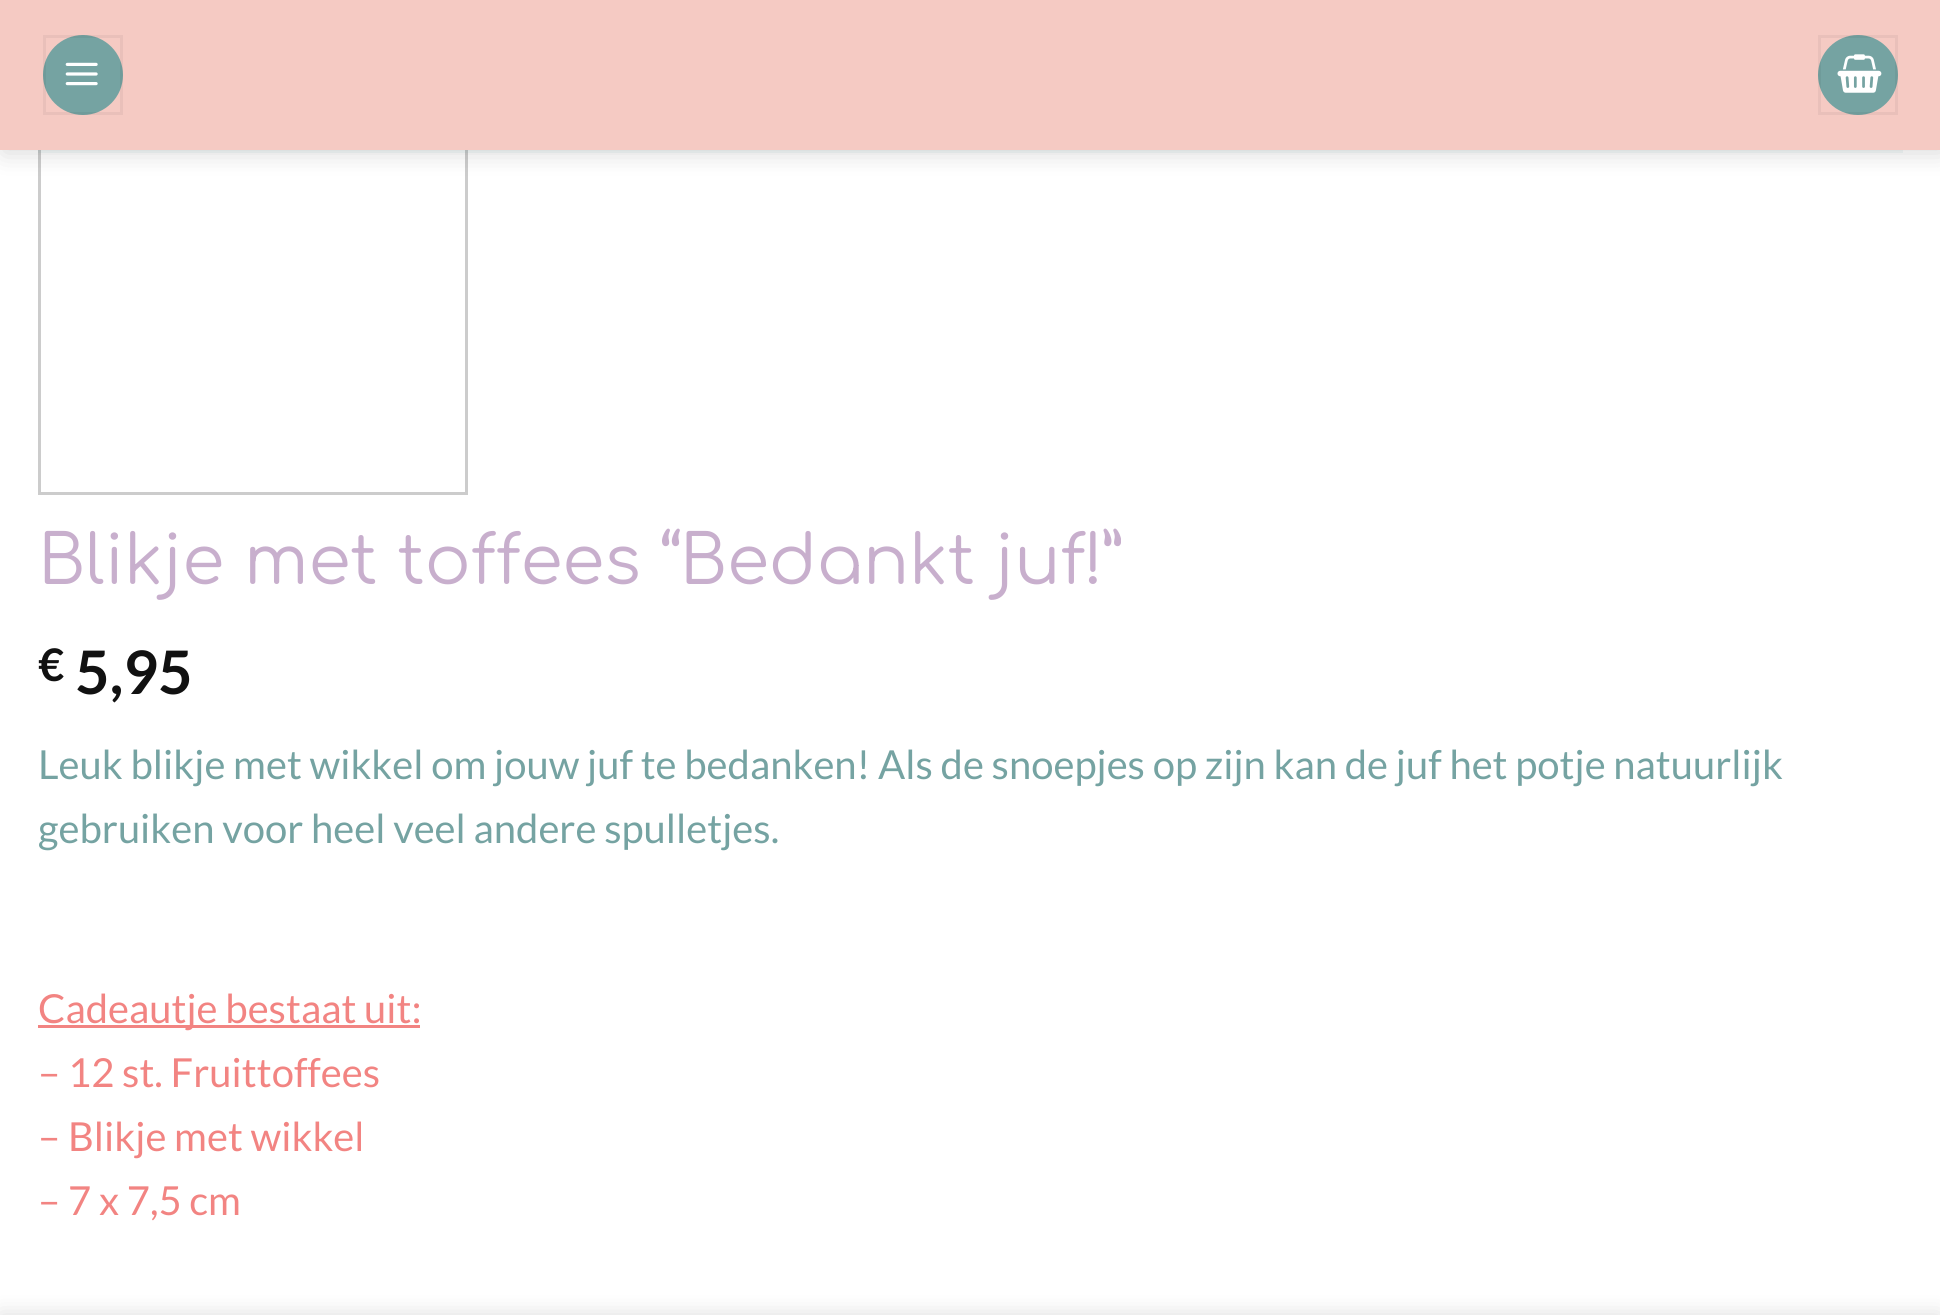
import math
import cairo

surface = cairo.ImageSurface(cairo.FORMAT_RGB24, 1940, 1315)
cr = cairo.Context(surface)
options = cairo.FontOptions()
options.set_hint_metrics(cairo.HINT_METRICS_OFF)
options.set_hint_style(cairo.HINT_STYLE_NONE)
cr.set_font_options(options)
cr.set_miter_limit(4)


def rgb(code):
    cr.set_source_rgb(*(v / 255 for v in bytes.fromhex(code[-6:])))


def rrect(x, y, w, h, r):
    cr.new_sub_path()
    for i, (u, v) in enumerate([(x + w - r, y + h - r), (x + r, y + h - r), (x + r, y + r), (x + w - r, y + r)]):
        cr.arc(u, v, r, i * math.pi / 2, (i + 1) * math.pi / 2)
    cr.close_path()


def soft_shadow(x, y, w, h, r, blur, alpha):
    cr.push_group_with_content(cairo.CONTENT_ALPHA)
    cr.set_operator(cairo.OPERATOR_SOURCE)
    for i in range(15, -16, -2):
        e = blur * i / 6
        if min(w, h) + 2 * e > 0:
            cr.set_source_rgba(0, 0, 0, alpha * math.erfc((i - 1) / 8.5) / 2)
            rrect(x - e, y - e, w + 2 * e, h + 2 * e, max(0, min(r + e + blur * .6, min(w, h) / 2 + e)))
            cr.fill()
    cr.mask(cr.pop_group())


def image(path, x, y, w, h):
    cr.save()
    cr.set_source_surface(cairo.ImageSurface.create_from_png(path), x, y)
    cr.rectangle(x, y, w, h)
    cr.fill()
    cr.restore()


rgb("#ffffff")
cr.paint()
cr.rectangle(39.5, 79.5, 427, 414)
rgb("#cccccc")
cr.set_line_width(3)
cr.stroke()
rgb("#000000")
soft_shadow(3, 3, 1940, 150, 0, 12.5, 0.15)
rgb("#f5cac3")
cr.rectangle(0, 0, 1940, 150)
cr.fill()
rgb("#75a3a2")
cr.arc(83, 75, 40, 0, 2 * math.pi)
cr.fill()
cr.rectangle(44.5, 36.5, 77, 77)
cr.set_source_rgba(0, 0, 0, 0.05)
cr.stroke()
image("img/1.png", 65, 62, 33, 24)
rgb("#75a3a2")
cr.arc(1858, 75, 40, 0, 2 * math.pi)
cr.fill()
cr.rectangle(1819.5, 36.5, 77, 77)
cr.set_source_rgba(0, 0, 0, 0.05)
cr.stroke()
image("img/2.png", 1837, 54, 45, 39)
cr.set_source_rgba(0.459, 0.639, 0.635, 0.1)
cr.rectangle(38, 150, 1865, 3)
cr.fill()
rgb("#f28482")
cr.rectangle(38, 1025, 382, 3)
cr.fill()
rgb("#000000")
soft_shadow(0, 1315, 1940, 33, 0, 11, 0.14)
cr.select_font_face("Comfortaa")
cr.set_font_size(68)
rgb("#c8afcd")
cr.move_to(38, 584)
cr.show_text("Blikje met toffees “Bedankt juf!”")
cr.select_font_face("Lato", cairo.FONT_SLANT_NORMAL, cairo.FONT_WEIGHT_BOLD)
cr.set_font_size(45)
rgb("#111111")
cr.move_to(38, 681)
cr.show_text("€")
cr.set_font_size(60)
cr.move_to(75, 694)
cr.show_text("5,95")
cr.select_font_face("Lato")
cr.set_font_size(40)
rgb("#75a3a2")
cr.move_to(38, 779)
cr.show_text("Leuk blikje met wikkel om jouw juf te bedanken! Als de snoepjes op zijn kan de juf het potje natuurlijk")
cr.move_to(38, 843)
cr.show_text("gebruiken voor heel veel andere spulletjes.")
rgb("#f28482")
for x, y, s in [
    (38, 1023, "Cadeautje bestaat uit:"),
    (38, 1087, "– 12 st. Fruittoffees"),
    (38, 1151, "– Blikje met wikkel"),
    (38, 1215, "– 7 x 7,5 cm"),
]:
    cr.move_to(x, y)
    cr.show_text(s)
surface.write_to_png("page.png")
